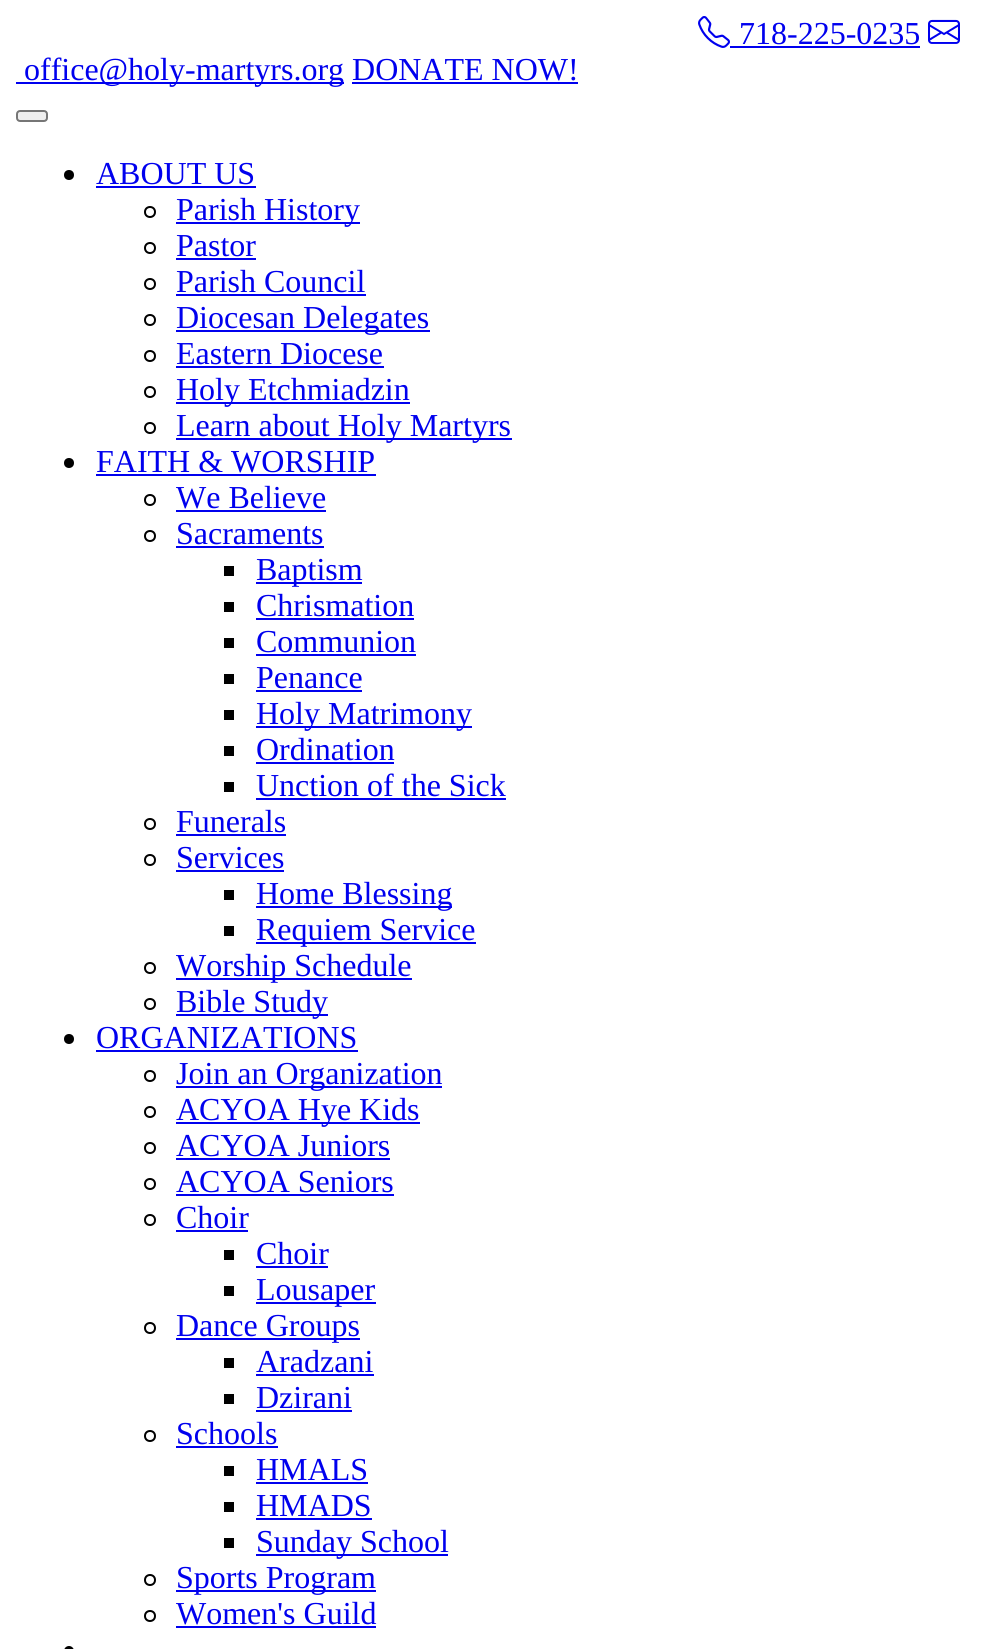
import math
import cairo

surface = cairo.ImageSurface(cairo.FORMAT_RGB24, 991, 1649)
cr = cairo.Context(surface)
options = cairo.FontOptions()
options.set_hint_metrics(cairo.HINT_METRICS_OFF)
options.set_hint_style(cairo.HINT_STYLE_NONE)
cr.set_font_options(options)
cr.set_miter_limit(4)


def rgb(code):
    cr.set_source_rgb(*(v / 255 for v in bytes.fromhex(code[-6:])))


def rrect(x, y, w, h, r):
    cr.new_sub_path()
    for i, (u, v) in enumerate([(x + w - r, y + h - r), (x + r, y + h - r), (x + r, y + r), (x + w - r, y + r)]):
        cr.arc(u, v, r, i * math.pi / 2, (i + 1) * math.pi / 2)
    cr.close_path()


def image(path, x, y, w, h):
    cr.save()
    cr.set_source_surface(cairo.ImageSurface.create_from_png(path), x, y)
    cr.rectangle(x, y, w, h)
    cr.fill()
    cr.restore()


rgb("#ffffff")
cr.paint()
image("img/1.png", 698, 16, 32, 32)
rgb("#0000ee")
cr.rectangle(730, 46, 190, 2)
cr.fill()
image("img/2.png", 928, 19, 32, 25)
cr.rectangle(16, 82, 328, 2)
cr.fill()
cr.rectangle(352, 82, 226, 2)
cr.fill()
rgb("#efefef")
rrect(17, 111, 30, 10, 3)
cr.fill_preserve()
rgb("#767676")
cr.stroke()
rgb("#000000")
cr.arc(69, 175, 5, 0, 2 * math.pi)
cr.fill()
rgb("#0000ee")
cr.rectangle(96, 186, 160, 2)
cr.fill()
cr.arc(150, 212, 5, 0, 2 * math.pi)
rgb("#000000")
cr.stroke()
rgb("#0000ee")
cr.rectangle(176, 222, 184, 2)
cr.fill()
cr.arc(150, 248, 5, 0, 2 * math.pi)
rgb("#000000")
cr.stroke()
rgb("#0000ee")
cr.rectangle(176, 258, 80, 2)
cr.fill()
cr.arc(150, 284, 5, 0, 2 * math.pi)
rgb("#000000")
cr.stroke()
rgb("#0000ee")
cr.rectangle(176, 294, 190, 2)
cr.fill()
cr.arc(150, 320, 5, 0, 2 * math.pi)
rgb("#000000")
cr.stroke()
rgb("#0000ee")
cr.rectangle(176, 330, 254, 2)
cr.fill()
cr.arc(150, 356, 5, 0, 2 * math.pi)
rgb("#000000")
cr.stroke()
rgb("#0000ee")
cr.rectangle(176, 366, 208, 2)
cr.fill()
cr.arc(150, 392, 5, 0, 2 * math.pi)
rgb("#000000")
cr.stroke()
rgb("#0000ee")
cr.rectangle(176, 402, 234, 2)
cr.fill()
cr.arc(150, 428, 5, 0, 2 * math.pi)
rgb("#000000")
cr.stroke()
rgb("#0000ee")
cr.rectangle(176, 438, 336, 2)
cr.fill()
rgb("#000000")
cr.arc(69, 463, 5, 0, 2 * math.pi)
cr.fill()
rgb("#0000ee")
cr.rectangle(96, 474, 280, 2)
cr.fill()
cr.arc(150, 500, 5, 0, 2 * math.pi)
rgb("#000000")
cr.stroke()
rgb("#0000ee")
cr.rectangle(176, 510, 150, 2)
cr.fill()
cr.arc(150, 536, 5, 0, 2 * math.pi)
rgb("#000000")
cr.stroke()
for x, y, w, h, color in [
    (176, 546, 148, 2, "#0000ee"),
    (224, 566, 10, 10, "#000000"),
    (256, 582, 106, 2, "#0000ee"),
    (224, 602, 10, 10, "#000000"),
    (256, 618, 158, 2, "#0000ee"),
    (224, 638, 10, 10, "#000000"),
    (256, 654, 160, 2, "#0000ee"),
    (224, 674, 10, 10, "#000000"),
    (256, 690, 106, 2, "#0000ee"),
    (224, 710, 10, 10, "#000000"),
    (256, 726, 216, 2, "#0000ee"),
    (224, 746, 10, 10, "#000000"),
    (256, 762, 138, 2, "#0000ee"),
    (224, 782, 10, 10, "#000000"),
    (256, 798, 250, 2, "#0000ee"),
]:
    rgb(color)
    cr.rectangle(x, y, w, h)
    cr.fill()
cr.arc(150, 824, 5, 0, 2 * math.pi)
rgb("#000000")
cr.stroke()
rgb("#0000ee")
cr.rectangle(176, 834, 110, 2)
cr.fill()
cr.arc(150, 860, 5, 0, 2 * math.pi)
rgb("#000000")
cr.stroke()
for x, y, w, h, color in [
    (176, 870, 108, 2, "#0000ee"),
    (224, 890, 10, 10, "#000000"),
    (256, 906, 196, 2, "#0000ee"),
    (224, 926, 10, 10, "#000000"),
    (256, 942, 220, 2, "#0000ee"),
]:
    rgb(color)
    cr.rectangle(x, y, w, h)
    cr.fill()
cr.arc(150, 968, 5, 0, 2 * math.pi)
rgb("#000000")
cr.stroke()
rgb("#0000ee")
cr.rectangle(176, 978, 236, 2)
cr.fill()
cr.arc(150, 1004, 5, 0, 2 * math.pi)
rgb("#000000")
cr.stroke()
rgb("#0000ee")
cr.rectangle(176, 1014, 152, 2)
cr.fill()
rgb("#000000")
cr.arc(69, 1039, 5, 0, 2 * math.pi)
cr.fill()
rgb("#0000ee")
cr.rectangle(96, 1050, 262, 2)
cr.fill()
cr.arc(150, 1076, 5, 0, 2 * math.pi)
rgb("#000000")
cr.stroke()
rgb("#0000ee")
cr.rectangle(176, 1086, 266, 2)
cr.fill()
cr.arc(150, 1112, 5, 0, 2 * math.pi)
rgb("#000000")
cr.stroke()
rgb("#0000ee")
cr.rectangle(176, 1122, 244, 2)
cr.fill()
cr.arc(150, 1148, 5, 0, 2 * math.pi)
rgb("#000000")
cr.stroke()
rgb("#0000ee")
cr.rectangle(176, 1158, 214, 2)
cr.fill()
cr.arc(150, 1184, 5, 0, 2 * math.pi)
rgb("#000000")
cr.stroke()
rgb("#0000ee")
cr.rectangle(176, 1194, 218, 2)
cr.fill()
cr.arc(150, 1220, 5, 0, 2 * math.pi)
rgb("#000000")
cr.stroke()
for x, y, w, h, color in [
    (176, 1230, 72, 2, "#0000ee"),
    (224, 1250, 10, 10, "#000000"),
    (256, 1266, 72, 2, "#0000ee"),
    (224, 1286, 10, 10, "#000000"),
    (256, 1302, 120, 2, "#0000ee"),
]:
    rgb(color)
    cr.rectangle(x, y, w, h)
    cr.fill()
cr.arc(150, 1328, 5, 0, 2 * math.pi)
rgb("#000000")
cr.stroke()
for x, y, w, h, color in [
    (176, 1338, 184, 2, "#0000ee"),
    (224, 1358, 10, 10, "#000000"),
    (256, 1374, 118, 2, "#0000ee"),
    (224, 1394, 10, 10, "#000000"),
    (256, 1410, 96, 2, "#0000ee"),
]:
    rgb(color)
    cr.rectangle(x, y, w, h)
    cr.fill()
cr.arc(150, 1436, 5, 0, 2 * math.pi)
rgb("#000000")
cr.stroke()
for x, y, w, h, color in [
    (176, 1446, 102, 2, "#0000ee"),
    (224, 1466, 10, 10, "#000000"),
    (256, 1482, 112, 2, "#0000ee"),
    (224, 1502, 10, 10, "#000000"),
    (256, 1518, 116, 2, "#0000ee"),
    (224, 1538, 10, 10, "#000000"),
    (256, 1554, 192, 2, "#0000ee"),
]:
    rgb(color)
    cr.rectangle(x, y, w, h)
    cr.fill()
cr.arc(150, 1580, 5, 0, 2 * math.pi)
rgb("#000000")
cr.stroke()
rgb("#0000ee")
cr.rectangle(176, 1590, 200, 2)
cr.fill()
cr.arc(150, 1616, 5, 0, 2 * math.pi)
rgb("#000000")
cr.stroke()
rgb("#0000ee")
cr.rectangle(176, 1626, 200, 2)
cr.fill()
rgb("#000000")
rrect(64, 1646, 10, 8, 5)
cr.fill()
cr.select_font_face("Liberation Serif")
cr.set_font_size(32)
rgb("#0000ee")
for x, y, s in [
    (739, 44, "718-225-0235"),
    (24, 80, "office@holy-martyrs.org DONATE NOW!"),
    (96, 184, "ABOUT US"),
    (176, 220, "Parish History"),
    (176, 256, "Pastor"),
    (176, 292, "Parish Council"),
    (176, 328, "Diocesan Delegates"),
    (176, 364, "Eastern Diocese"),
    (176, 400, "Holy Etchmiadzin"),
    (176, 436, "Learn about Holy Martyrs"),
    (96, 472, "FAITH & WORSHIP"),
    (176, 508, "We Believe"),
    (176, 544, "Sacraments"),
    (256, 580, "Baptism"),
    (256, 616, "Chrismation"),
    (256, 652, "Communion"),
    (256, 688, "Penance"),
    (256, 724, "Holy Matrimony"),
    (256, 760, "Ordination"),
    (256, 796, "Unction of the Sick"),
    (176, 832, "Funerals"),
    (176, 868, "Services"),
    (256, 904, "Home Blessing"),
    (256, 940, "Requiem Service"),
    (176, 976, "Worship Schedule"),
    (176, 1012, "Bible Study"),
    (96, 1048, "ORGANIZATIONS"),
    (176, 1084, "Join an Organization"),
    (176, 1120, "ACYOA Hye Kids"),
    (176, 1156, "ACYOA Juniors"),
    (176, 1192, "ACYOA Seniors"),
    (176, 1228, "Choir"),
    (256, 1264, "Choir"),
    (256, 1300, "Lousaper"),
    (176, 1336, "Dance Groups"),
    (256, 1372, "Aradzani"),
    (256, 1408, "Dzirani"),
    (176, 1444, "Schools"),
    (256, 1480, "HMALS"),
    (256, 1516, "HMADS"),
    (256, 1552, "Sunday School"),
    (176, 1588, "Sports Program"),
    (176, 1624, "Women's Guild"),
]:
    cr.move_to(x, y)
    cr.show_text(s)
surface.write_to_png("page.png")
